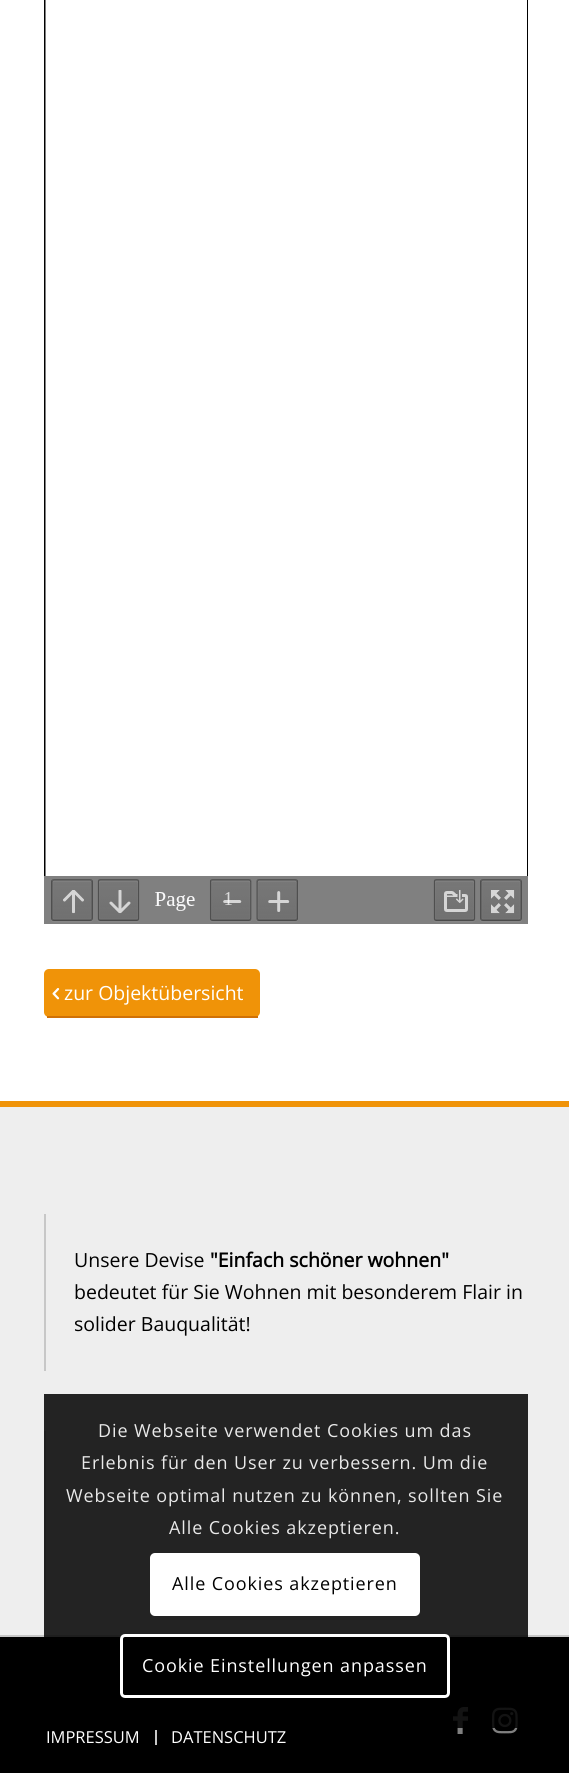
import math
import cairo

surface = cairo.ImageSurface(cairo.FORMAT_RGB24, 569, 1773)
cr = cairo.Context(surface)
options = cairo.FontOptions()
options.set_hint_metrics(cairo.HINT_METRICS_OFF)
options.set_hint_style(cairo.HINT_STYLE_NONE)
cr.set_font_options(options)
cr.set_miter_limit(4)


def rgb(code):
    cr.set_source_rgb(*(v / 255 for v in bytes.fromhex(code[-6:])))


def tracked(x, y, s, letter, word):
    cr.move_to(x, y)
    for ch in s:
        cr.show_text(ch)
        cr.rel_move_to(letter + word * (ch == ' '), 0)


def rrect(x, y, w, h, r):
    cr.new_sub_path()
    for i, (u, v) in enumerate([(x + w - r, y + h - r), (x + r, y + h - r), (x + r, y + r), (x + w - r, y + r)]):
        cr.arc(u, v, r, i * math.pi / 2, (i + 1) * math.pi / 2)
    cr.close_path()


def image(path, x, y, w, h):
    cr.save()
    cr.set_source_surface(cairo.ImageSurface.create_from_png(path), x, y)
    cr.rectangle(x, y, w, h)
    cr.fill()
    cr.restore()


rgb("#ffffff")
cr.paint()
image("img/1.png", 44, 0, 484, 924)
rgb("#f09308")
rrect(44, 969, 216, 48, 5)
cr.fill()
rgb("#d07106")
cr.rectangle(47, 1016, 211, 2)
cr.fill()
image("img/2.png", 52, 988, 8, 12)
for x, y, w, h, color in [
    (0, 1107, 569, 528, "#eeeeee"),
    (0, 1101, 569, 6, "#f09308"),
    (44, 1214, 2, 157, "#c7c7c7"),
    (44, 1431, 2, 159, "#c7c7c7"),
    (0, 1637, 569, 136, "#000000"),
    (0, 1635, 569, 2, "#c7c7c7"),
]:
    rgb(color)
    cr.rectangle(x, y, w, h)
    cr.fill()
image("img/3.png", 453, 1707, 15, 27)
image("img/4.png", 492, 1707, 26, 27)
cr.rectangle(155, 1730, 2, 15)
cr.fill()
cr.set_source_rgba(0, 0, 0, 0.85)
cr.rectangle(44, 1394, 484, 334)
cr.fill()
rgb("#ffffff")
rrect(150, 1553, 270, 63, 5)
cr.fill()
rrect(121.5, 1635.5, 327, 61, 3.5)
cr.set_line_width(3)
cr.stroke()
cr.select_font_face("Open Sans")
cr.set_font_size(19.5)
cr.move_to(64, 1000)
cr.show_text("zur Objektübersicht")
rgb("#000000")
cr.move_to(74, 1267)
cr.show_text("Unsere Devise")
cr.select_font_face("Open Sans", cairo.FONT_SLANT_NORMAL, cairo.FONT_WEIGHT_BOLD)
cr.move_to(210, 1267)
cr.show_text("\"Einfach schöner wohnen\"")
cr.select_font_face("Open Sans")
cr.move_to(74, 1299)
cr.show_text("bedeutet für Sie Wohnen mit besonderem Flair in")
cr.move_to(74, 1331)
cr.show_text("solider Bauqualität!")
cr.set_font_size(16.5)
rgb("#ffffff")
cr.move_to(46, 1743)
cr.show_text("IMPRESSUM")
cr.move_to(171, 1743)
cr.show_text("DATENSCHUTZ")
cr.set_font_size(18)
rgb("#e9e9e9")
for x, y, s in [
    (98, 1437, "Die Webseite verwendet Cookies um das"),
    (81, 1469, "Erlebnis für den User zu verbessern. Um die"),
    (66, 1502, "Webseite optimal nutzen zu können, sollten Sie"),
    (169, 1534, "Alle Cookies akzeptieren."),
]:
    tracked(x, y, s, 0.9, 0)
rgb("#000000")
tracked(172, 1590, "Alle Cookies akzeptieren", 0.9, 0)
rgb("#ffffff")
tracked(142, 1672, "Cookie Einstellungen anpassen", 0.9, 0)
surface.write_to_png("page.png")
